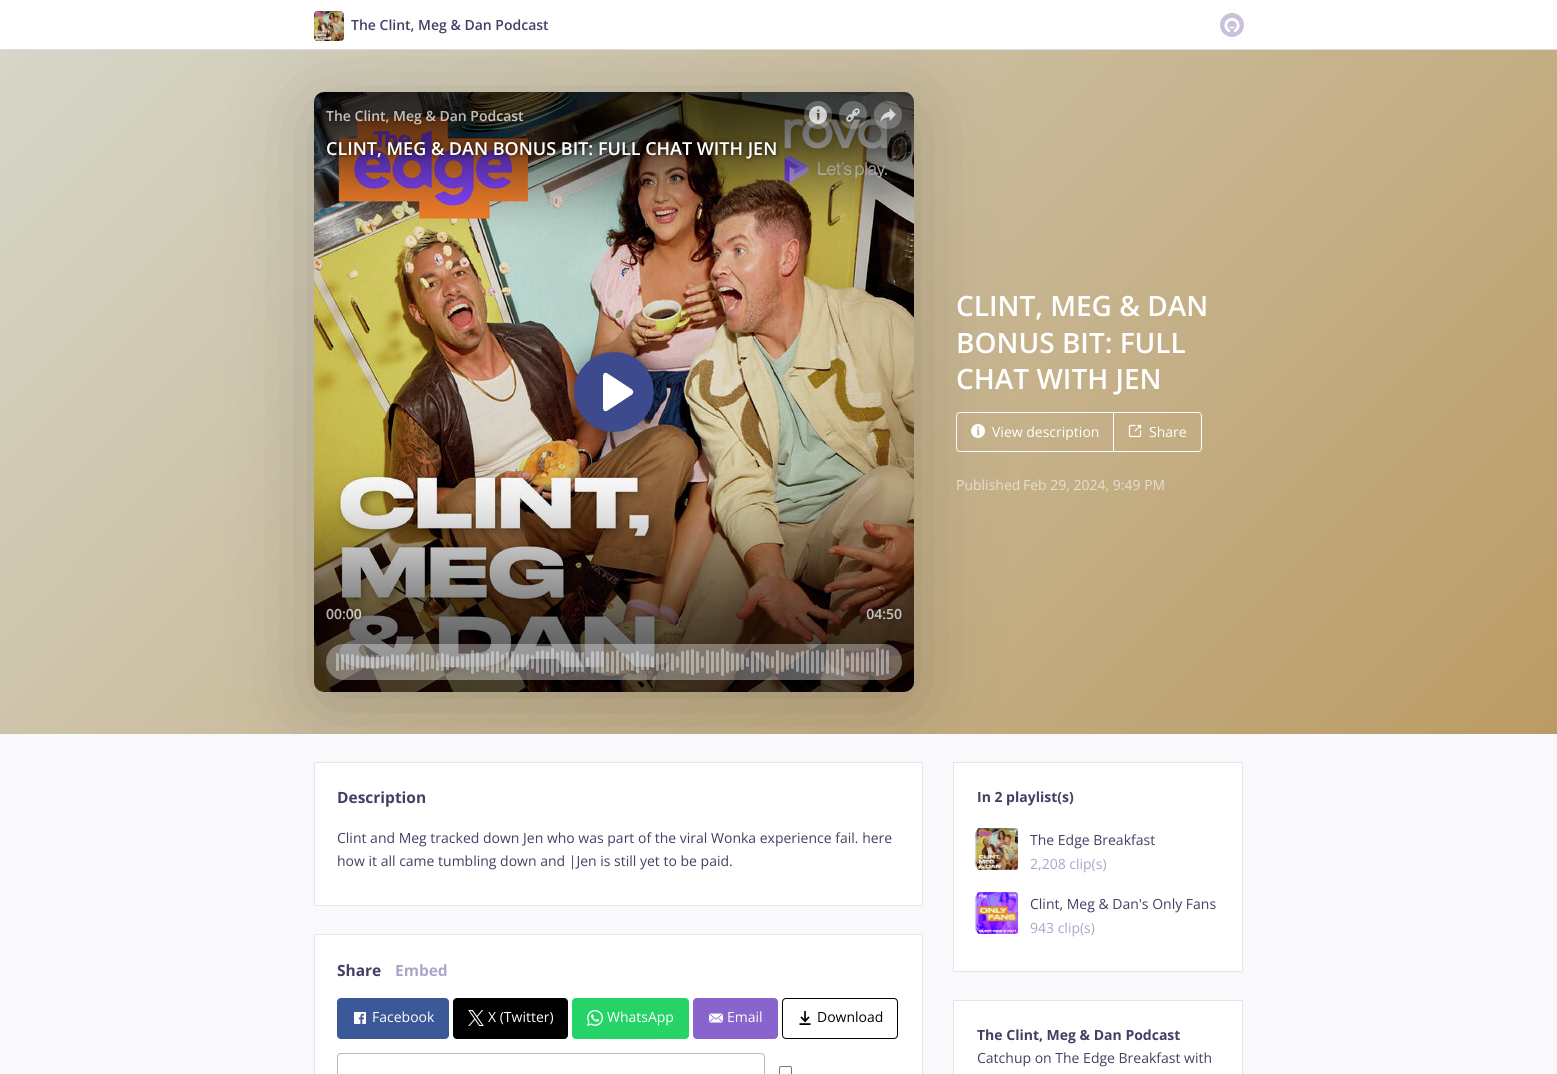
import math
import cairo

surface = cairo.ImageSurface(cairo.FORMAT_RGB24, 1557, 1074)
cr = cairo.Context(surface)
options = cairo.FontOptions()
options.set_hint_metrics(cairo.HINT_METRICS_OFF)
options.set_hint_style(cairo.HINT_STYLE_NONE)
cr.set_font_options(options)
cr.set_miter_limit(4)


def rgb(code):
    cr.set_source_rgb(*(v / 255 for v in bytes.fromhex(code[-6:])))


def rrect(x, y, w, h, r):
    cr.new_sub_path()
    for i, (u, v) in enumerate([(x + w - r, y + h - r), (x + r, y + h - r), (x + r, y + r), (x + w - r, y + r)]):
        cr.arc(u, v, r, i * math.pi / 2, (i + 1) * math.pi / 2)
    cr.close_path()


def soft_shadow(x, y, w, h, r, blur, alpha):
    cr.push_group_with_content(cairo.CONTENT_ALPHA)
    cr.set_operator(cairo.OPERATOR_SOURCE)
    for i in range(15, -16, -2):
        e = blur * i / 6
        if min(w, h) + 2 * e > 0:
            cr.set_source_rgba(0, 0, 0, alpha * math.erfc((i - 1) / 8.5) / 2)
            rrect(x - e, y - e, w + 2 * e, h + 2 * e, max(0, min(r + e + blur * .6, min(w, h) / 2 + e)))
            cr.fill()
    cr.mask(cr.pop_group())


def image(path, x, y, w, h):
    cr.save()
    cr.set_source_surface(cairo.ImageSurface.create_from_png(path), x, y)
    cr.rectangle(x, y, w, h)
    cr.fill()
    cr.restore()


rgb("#f9f8fb")
cr.paint()
rgb("#ffffff")
cr.rectangle(0, 0, 1557, 49)
cr.fill()
rgb("#dddddd")
cr.rectangle(0, 49, 1557, 1)
cr.fill()
image("img/1.png", 314, 11, 30, 30)
image("img/2.png", 1220, 13, 24, 24)
gradient = cairo.LinearGradient(218, -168, 1339, 952)
gradient.add_color_stop_rgba(0, 0.839, 0.839, 0.788, 1)
gradient.add_color_stop_rgba(1, 0.733, 0.608, 0.392, 1)
cr.set_source(gradient)
cr.rectangle(0, 50, 1557, 684)
cr.fill()
cr.new_path()
cr.move_to(960, 412.5)
cr.line_to(1113.5, 412.5)
cr.line_to(1113.5, 451.5)
cr.line_to(960, 451.5)
cr.curve_to(958, 451.5, 956.5, 450, 956.5, 448)
cr.line_to(956.5, 416)
cr.curve_to(956.5, 414, 958, 412.5, 960, 412.5)
cr.close_path()
rgb("#ffffff")
cr.set_line_width(1)
cr.stroke()
cr.rectangle(314.5, 762.5, 608, 143)
cr.fill_preserve()
rgb("#e6e2ee")
cr.stroke()
rgb("#ffffff")
cr.rectangle(953.5, 762.5, 289, 209)
cr.fill_preserve()
rgb("#e6e2ee")
cr.stroke()
cr.save()
cr.rectangle(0, 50, 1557, 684)
cr.clip()
rgb("#000000")
soft_shadow(314, 106, 600, 600, 10, 42, 0.2)
cr.restore()
cr.set_source_rgba(0, 0, 0, 0.2)
rrect(314, 92, 600, 600, 10)
cr.fill()
image("img/3.png", 314, 92, 600, 600)
image("img/4.png", 971, 424, 14, 14)
rgb("#ffffff")
cr.set_fill_rule(cairo.FILL_RULE_EVEN_ODD)
cr.new_path()
cr.move_to(1114, 412)
cr.line_to(1198, 412)
cr.curve_to(1200, 412, 1202, 414, 1202, 416)
cr.line_to(1202, 448)
cr.curve_to(1202, 450, 1200, 452, 1198, 452)
cr.line_to(1114, 452)
cr.close_path()
cr.move_to(1114, 413)
cr.line_to(1198, 413)
cr.curve_to(1200, 413, 1201, 414, 1201, 416)
cr.line_to(1201, 448)
cr.curve_to(1201, 450, 1200, 451, 1198, 451)
cr.line_to(1114, 451)
cr.close_path()
cr.fill()
image("img/5.png", 1128, 424, 14, 14)
cr.rectangle(314.5, 934.5, 608, 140)
cr.fill_preserve()
rgb("#e6e2ee")
cr.stroke()
rgb("#3b5998")
rrect(337.5, 998.5, 111, 40, 3.5)
cr.fill_preserve()
cr.stroke()
image("img/6.png", 354, 1012, 12, 12)
rgb("#000000")
rrect(453.5, 998.5, 114, 40, 3.5)
cr.fill_preserve()
cr.stroke()
image("img/7.png", 468, 1010, 16, 16)
rgb("#25d366")
rrect(572.5, 998.5, 116, 40, 3.5)
cr.fill_preserve()
cr.stroke()
image("img/8.png", 587, 1010, 16, 16)
rgb("#8964cc")
rrect(693.5, 998.5, 84, 40, 3.5)
cr.fill_preserve()
cr.stroke()
image("img/9.png", 709, 1013, 14, 10)
rrect(782.5, 998.5, 115, 40, 3.5)
rgb("#000000")
cr.stroke()
image("img/10.png", 799, 1011, 12, 14)
rrect(337.5, 1053.5, 427, 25, 3.5)
rgb("#b9b9b9")
cr.stroke()
rrect(779.5, 1066.5, 12, 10, 1.5)
rgb("#767676")
cr.stroke()
rgb("#efecf4")
rrect(975, 832, 33, 34, 2.5)
cr.fill()
image("img/13.png", 974, 832, 3, 34)
cr.set_source_rgba(0.686, 0.631, 0.792, 0.5)
rrect(976, 830, 37, 38, 2.5)
cr.fill()
image("img/12.png", 975, 830, 3, 38)
rgb("#afa1ca")
rrect(977, 828, 41, 42, 3)
cr.fill()
image("img/11.png", 977, 828, 41, 42)
rgb("#efecf4")
rrect(975, 897, 33, 33, 2.5)
cr.fill()
image("img/16.png", 974, 896, 3, 34)
cr.set_source_rgba(0.686, 0.631, 0.792, 0.5)
rrect(976, 895, 37, 37, 2.5)
cr.fill()
image("img/15.png", 975, 894, 3, 38)
rgb("#afa1ca")
rrect(977, 892, 41, 42, 3)
cr.fill()
image("img/14.png", 977, 892, 41, 42)
rgb("#ffffff")
cr.rectangle(953.5, 1000.5, 289, 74)
cr.fill_preserve()
rgb("#e6e2ee")
cr.stroke()
cr.select_font_face("Open Sans SemiBold")
cr.set_font_size(14)
rgb("#483c63")
cr.move_to(351, 30)
cr.show_text("The Clint, Meg & Dan Podcast")
cr.set_font_size(28)
rgb("#ffffff")
for x, y, s in [
    (956, 316, "CLINT, MEG & DAN"),
    (956, 353, "BONUS BIT: FULL"),
    (956, 389, "CHAT WITH JEN"),
]:
    cr.move_to(x, y)
    cr.show_text(s)
cr.select_font_face("Open Sans")
cr.set_font_size(14)
cr.move_to(992, 437)
cr.show_text("View description")
cr.move_to(1149, 437)
cr.show_text("Share")
rgb("#e7dfcf")
cr.move_to(956, 490)
cr.show_text("Published")
cr.move_to(1023, 490)
cr.show_text("Feb 29, 2024, 9:49 PM")
cr.select_font_face("Open Sans", cairo.FONT_SLANT_NORMAL, cairo.FONT_WEIGHT_BOLD)
cr.set_font_size(15.5)
rgb("#483c63")
cr.move_to(337, 803)
cr.show_text("Description")
cr.select_font_face("Open Sans")
cr.set_font_size(14)
cr.move_to(337, 843)
cr.show_text("Clint and Meg tracked down Jen who was part of the viral Wonka experience fail. here")
cr.move_to(337, 866)
cr.show_text("how it all came tumbling down and |Jen is still yet to be paid.")
cr.select_font_face("Open Sans", cairo.FONT_SLANT_NORMAL, cairo.FONT_WEIGHT_BOLD)
cr.set_font_size(15.5)
cr.move_to(337, 976)
cr.show_text("Share")
rgb("#aea3c8")
cr.move_to(395, 976)
cr.show_text("Embed")
cr.select_font_face("Open Sans")
cr.set_font_size(14)
rgb("#ffffff")
for x, y, s in [
    (372, 1022, "Facebook"),
    (488, 1022, "X (Twitter)"),
    (607, 1022, "WhatsApp"),
    (727, 1022, "Email"),
]:
    cr.move_to(x, y)
    cr.show_text(s)
rgb("#000000")
cr.move_to(817, 1022)
cr.show_text("Download")
cr.select_font_face("Open Sans", cairo.FONT_SLANT_NORMAL, cairo.FONT_WEIGHT_BOLD)
rgb("#483c63")
cr.move_to(977, 802)
cr.show_text("In 2 playlist(s)")
cr.select_font_face("Open Sans")
cr.move_to(1030, 845)
cr.show_text("The Edge Breakfast")
rgb("#aea3c8")
cr.move_to(1030, 869)
cr.show_text("2,208 clip(s)")
rgb("#483c63")
cr.move_to(1030, 909)
cr.show_text("Clint, Meg & Dan's Only Fans")
rgb("#aea3c8")
cr.move_to(1030, 933)
cr.show_text("943 clip(s)")
cr.select_font_face("Open Sans", cairo.FONT_SLANT_NORMAL, cairo.FONT_WEIGHT_BOLD)
rgb("#483c63")
cr.move_to(977, 1040)
cr.show_text("The Clint, Meg & Dan Podcast")
cr.select_font_face("Open Sans")
cr.move_to(977, 1063)
cr.show_text("Catchup on The Edge Breakfast with")
surface.write_to_png("page.png")
